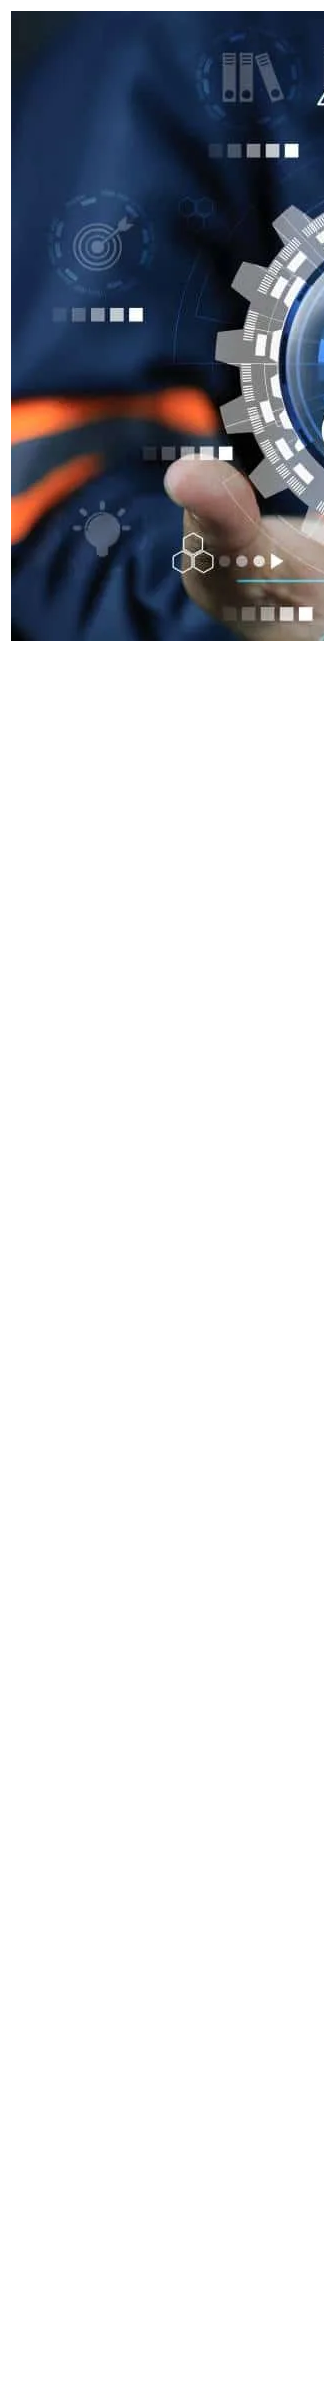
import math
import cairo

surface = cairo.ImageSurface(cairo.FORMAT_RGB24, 324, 2384)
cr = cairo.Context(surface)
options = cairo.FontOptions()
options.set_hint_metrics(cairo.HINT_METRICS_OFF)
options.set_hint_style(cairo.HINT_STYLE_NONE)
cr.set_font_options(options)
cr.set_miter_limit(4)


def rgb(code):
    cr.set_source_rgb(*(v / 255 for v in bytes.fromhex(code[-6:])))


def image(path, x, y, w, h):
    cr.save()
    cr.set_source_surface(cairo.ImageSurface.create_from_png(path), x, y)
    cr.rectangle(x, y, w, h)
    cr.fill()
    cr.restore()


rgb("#ffffff")
cr.paint()
image("img/1.png", 11, 11, 313, 630)
surface.write_to_png("page.png")
